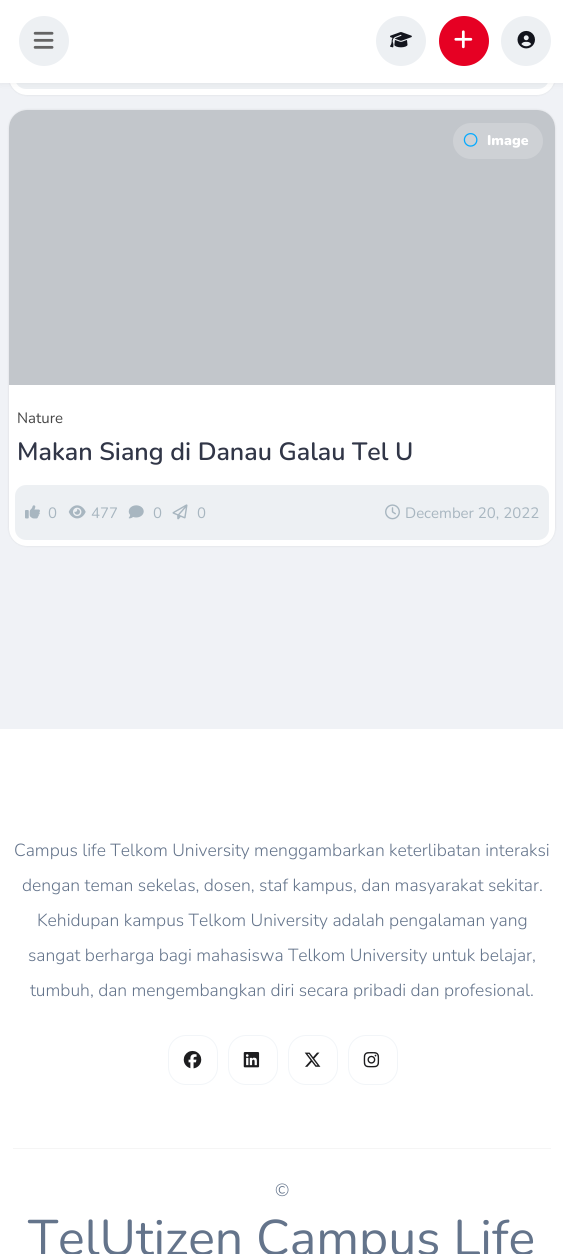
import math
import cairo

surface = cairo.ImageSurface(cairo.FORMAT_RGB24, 563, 1254)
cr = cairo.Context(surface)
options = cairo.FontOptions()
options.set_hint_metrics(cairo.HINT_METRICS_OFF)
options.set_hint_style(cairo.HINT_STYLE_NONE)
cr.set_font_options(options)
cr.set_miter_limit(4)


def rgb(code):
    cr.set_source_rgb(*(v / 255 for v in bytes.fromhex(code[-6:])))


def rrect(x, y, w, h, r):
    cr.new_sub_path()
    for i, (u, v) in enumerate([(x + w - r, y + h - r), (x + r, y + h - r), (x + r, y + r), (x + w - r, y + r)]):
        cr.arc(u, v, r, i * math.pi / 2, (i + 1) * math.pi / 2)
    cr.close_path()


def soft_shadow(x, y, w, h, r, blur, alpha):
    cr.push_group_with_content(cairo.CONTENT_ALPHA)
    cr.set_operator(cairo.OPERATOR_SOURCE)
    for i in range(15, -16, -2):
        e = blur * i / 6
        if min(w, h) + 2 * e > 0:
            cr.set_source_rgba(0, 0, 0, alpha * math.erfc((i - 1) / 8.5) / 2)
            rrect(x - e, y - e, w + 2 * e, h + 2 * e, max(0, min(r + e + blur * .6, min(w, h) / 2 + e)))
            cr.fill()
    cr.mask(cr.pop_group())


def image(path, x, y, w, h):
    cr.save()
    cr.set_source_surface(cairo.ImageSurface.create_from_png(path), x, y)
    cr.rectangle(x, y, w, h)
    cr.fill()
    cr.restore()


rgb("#f0f2f6")
cr.paint()
rgb("#000000")
soft_shadow(9, -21, 546, 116, 18, 1, 0.1)
rgb("#ffffff")
rrect(9, -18, 546, 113, 18)
cr.fill()
rgb("#edf0f3")
rrect(15, 34, 534, 55, 11)
cr.fill()
rgb("#000000")
soft_shadow(0, 1, 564, 83, 0, 3, 0.05)
rgb("#ffffff")
cr.rectangle(0, 0, 563, 83)
cr.fill()
rgb("#edf0f3")
cr.arc(44, 41, 25, 0, 2 * math.pi)
cr.fill()
image("img/1.png", 33, 31, 21, 18)
cr.arc(401, 41, 25, 0, 2 * math.pi)
cr.fill()
image("img/2.png", 390, 32, 22, 16)
rgb("#e60023")
cr.arc(464, 41, 25, 0, 2 * math.pi)
cr.fill()
image("img/3.png", 454, 30, 19, 19)
rgb("#edf0f3")
cr.arc(526, 41, 25, 0, 2 * math.pi)
cr.fill()
image("img/4.png", 517, 30, 18, 19)
rgb("#000000")
soft_shadow(9, 110, 546, 436, 18, 1, 0.1)
rgb("#ffffff")
rrect(9, 110, 546, 436, 18)
cr.fill()
rgb("#c2c6cb")
cr.new_path()
cr.move_to(27, 110)
cr.line_to(537, 110)
cr.curve_to(547, 110, 555, 118, 555, 128)
cr.line_to(555, 385)
cr.line_to(9, 385)
cr.line_to(9, 128)
cr.curve_to(9, 118, 17, 110, 27, 110)
cr.close_path()
cr.fill()
rgb("#ced1d5")
rrect(453, 123, 90, 36, 18)
cr.fill()
image("img/5.png", 463, 133, 15, 14)
rgb("#edf0f3")
rrect(15, 485, 534, 55, 11)
cr.fill()
image("img/6.png", 25, 505, 15, 14)
image("img/7.png", 68, 505, 18, 14)
image("img/8.png", 128, 505, 16, 14)
image("img/9.png", 172, 504, 16, 16)
image("img/10.png", 385, 504, 15, 16)
rgb("#ffffff")
cr.rectangle(0, 729, 563, 525)
cr.fill()
rgb("#f5f5f5")
cr.rectangle(13, 1148, 538, 1)
cr.fill()
rrect(168.5, 1035.5, 49, 49, 17.5)
rgb("#f2f5f8")
cr.set_line_width(1)
cr.stroke()
image("img/11.png", 183, 1050, 19, 19)
rrect(228.5, 1035.5, 49, 49, 17.5)
cr.stroke()
image("img/12.png", 243, 1052, 17, 16)
rrect(288.5, 1035.5, 49, 49, 17.5)
cr.stroke()
image("img/13.png", 304, 1052, 17, 15)
rrect(348.5, 1035.5, 49, 49, 17.5)
cr.stroke()
image("img/14.png", 363, 1052, 17, 16)
cr.select_font_face("Nunito Black")
cr.set_font_size(14)
rgb("#ffffff")
cr.move_to(487, 145)
cr.show_text("Image")
cr.select_font_face("Nunito")
cr.set_font_size(15)
rgb("#464646")
cr.move_to(17, 423)
cr.show_text("Nature")
cr.select_font_face("Nunito SemiBold")
cr.set_font_size(25)
rgb("#313647")
cr.move_to(17, 460)
cr.show_text("Makan Siang di Danau Galau Tel U")
cr.select_font_face("Nunito")
cr.set_font_size(15)
rgb("#a8b6c0")
for x, y, s in [
    (48, 518, "0"),
    (91, 518, "477"),
    (153, 518, "0"),
    (197, 518, "0"),
    (405, 518, "December 20, 2022"),
]:
    cr.move_to(x, y)
    cr.show_text(s)
cr.select_font_face("Nunito Light")
cr.set_font_size(17.5)
rgb("#64748b")
for x, y, s in [
    (14, 856, "Campus life Telkom University menggambarkan keterlibatan interaksi"),
    (22, 891, "dengan teman sekelas, dosen, staf kampus, dan masyarakat sekitar."),
    (37, 926, "Kehidupan kampus Telkom University adalah pengalaman yang"),
    (28, 961, "sangat berharga bagi mahasiswa Telkom University untuk belajar,"),
    (30, 996, "tumbuh, dan mengembangkan diri secara pribadi dan profesional."),
    (275, 1196, "©"),
]:
    cr.move_to(x, y)
    cr.show_text(s)
cr.select_font_face("Nunito")
cr.set_font_size(50)
cr.move_to(28, 1255)
cr.show_text("TelUtizen Campus Life")
surface.write_to_png("page.png")
